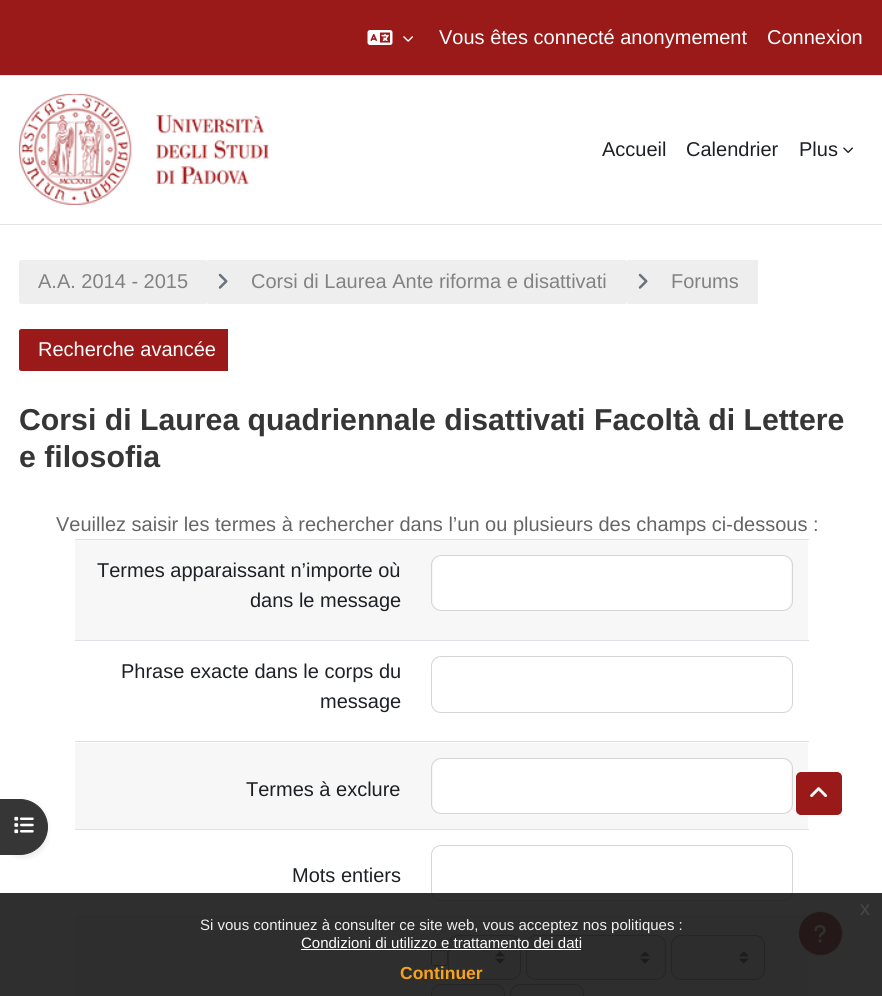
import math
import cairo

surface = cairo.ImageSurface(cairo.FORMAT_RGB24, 882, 996)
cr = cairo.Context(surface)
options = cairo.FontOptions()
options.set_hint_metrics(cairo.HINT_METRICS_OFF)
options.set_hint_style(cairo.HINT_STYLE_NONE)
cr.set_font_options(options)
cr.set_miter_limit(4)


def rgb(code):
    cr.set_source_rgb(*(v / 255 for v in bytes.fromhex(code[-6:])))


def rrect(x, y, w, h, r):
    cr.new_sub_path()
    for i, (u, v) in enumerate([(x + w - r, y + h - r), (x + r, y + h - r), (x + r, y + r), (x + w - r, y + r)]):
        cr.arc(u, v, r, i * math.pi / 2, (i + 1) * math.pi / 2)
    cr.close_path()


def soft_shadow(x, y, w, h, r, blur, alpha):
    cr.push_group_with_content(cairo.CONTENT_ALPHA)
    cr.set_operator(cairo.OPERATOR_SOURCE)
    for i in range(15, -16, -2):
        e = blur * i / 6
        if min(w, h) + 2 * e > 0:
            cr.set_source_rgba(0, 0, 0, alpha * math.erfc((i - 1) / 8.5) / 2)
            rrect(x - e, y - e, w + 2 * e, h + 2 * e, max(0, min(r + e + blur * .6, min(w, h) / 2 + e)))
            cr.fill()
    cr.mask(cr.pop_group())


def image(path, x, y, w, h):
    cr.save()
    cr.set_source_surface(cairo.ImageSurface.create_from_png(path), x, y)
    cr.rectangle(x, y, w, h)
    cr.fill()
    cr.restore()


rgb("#ffffff")
cr.paint()
rgb("#9a1919")
cr.rectangle(0, 0, 882, 75)
cr.fill()
rgb("#e8e3e3")
cr.rectangle(0, 75, 882, 1)
cr.fill()
image("img/1.png", 367, 30, 26, 15)
image("img/2.png", 403, 36, 10, 6)
cr.rectangle(0, 224, 882, 1)
cr.fill()
image("img/3.png", 18, 93, 251, 112)
image("img/4.png", 843, 147, 10, 6)
rgb("#eeeeee")
cr.new_path()
cr.move_to(21.5, 260)
cr.line_to(206, 260)
cr.line_to(206, 304)
cr.line_to(21.5, 304)
cr.curve_to(20, 304, 19, 303, 19, 301.5)
cr.line_to(19, 262.5)
cr.curve_to(19, 261, 20, 260, 21.5, 260)
cr.close_path()
cr.fill()
cr.new_path()
cr.move_to(208.5, 260)
cr.line_to(626, 260)
cr.line_to(626, 304)
cr.line_to(208.5, 304)
cr.curve_to(207, 304, 206, 303, 206, 301.5)
cr.line_to(206, 262.5)
cr.curve_to(206, 261, 207, 260, 208.5, 260)
cr.close_path()
cr.fill()
image("img/5.png", 218, 273, 10, 16)
cr.new_path()
cr.move_to(628.5, 260)
cr.line_to(758, 260)
cr.line_to(758, 304)
cr.line_to(628.5, 304)
cr.curve_to(627, 304, 626, 303, 626, 301.5)
cr.line_to(626, 262.5)
cr.curve_to(626, 261, 627, 260, 628.5, 260)
cr.close_path()
cr.fill()
image("img/5.png", 638, 273, 10, 16)
rgb("#9a1919")
cr.new_path()
cr.move_to(21.5, 329)
cr.line_to(228, 329)
cr.line_to(228, 371)
cr.line_to(21.5, 371)
cr.curve_to(20, 371, 19, 370, 19, 368.5)
cr.line_to(19, 331.5)
cr.curve_to(19, 330, 20, 329, 21.5, 329)
cr.close_path()
cr.fill()
rgb("#000000")
soft_shadow(0, 801, 48, 57, 28, 2.5, 0.07)
rgb("#363636")
cr.new_path()
cr.move_to(0.5, 799.5)
cr.line_to(20, 799.5)
cr.curve_to(35, 799.5, 47.5, 812, 47.5, 827)
cr.curve_to(47.5, 842, 35, 854.5, 20, 854.5)
cr.line_to(0.5, 854.5)
cr.close_path()
cr.fill_preserve()
cr.set_line_width(1)
cr.stroke()
image("img/6.png", 14, 816, 20, 18)
rgb("#f7f7f7")
cr.rectangle(75, 540, 733, 100)
cr.fill()
rgb("#dee2e6")
cr.rectangle(75, 539, 734, 1)
cr.fill()
rgb("#ffffff")
rrect(433, 556, 358, 54, 9)
cr.fill()
rrect(431.5, 555.5, 361, 55, 9.5)
rgb("#d5d5d5")
cr.stroke()
rgb("#dee2e6")
cr.rectangle(75, 640, 734, 1)
cr.fill()
rrect(431.5, 656.5, 361, 56, 9.5)
rgb("#d5d5d5")
cr.stroke()
rgb("#f7f7f7")
cr.rectangle(75, 743, 733, 86)
cr.fill()
rgb("#dee2e6")
cr.rectangle(75, 741, 734, 1)
cr.fill()
rgb("#ffffff")
rrect(433, 759, 358, 54, 9)
cr.fill()
rrect(431.5, 758.5, 361, 55, 9.5)
rgb("#d5d5d5")
cr.stroke()
rgb("#dee2e6")
cr.rectangle(75, 829, 734, 1)
cr.fill()
rrect(431.5, 845.5, 361, 55, 9.5)
rgb("#d5d5d5")
cr.stroke()
rgb("#f7f7f7")
cr.rectangle(75, 917, 733, 79)
cr.fill()
rgb("#dee2e6")
cr.rectangle(75, 916, 733, 1)
cr.fill()
rgb("#ffffff")
rrect(431.5, 950.5, 16, 15, 2)
cr.fill_preserve()
rgb("#767676")
cr.stroke()
rgb("#e9ecef")
rrect(449, 936, 71, 43, 9)
cr.fill()
image("img/7.png", 495, 951, 10, 13)
rrect(448.5, 935.5, 72, 44, 9.5)
rgb("#8f959e")
cr.stroke()
rgb("#e9ecef")
rrect(528, 936, 137, 43, 9)
cr.fill()
image("img/7.png", 640, 951, 10, 13)
rrect(526.5, 935.5, 139, 44, 9.5)
rgb("#8f959e")
cr.stroke()
rgb("#e9ecef")
rrect(673, 936, 91, 43, 9)
cr.fill()
image("img/8.png", 739, 951, 10, 13)
rrect(671.5, 935.5, 93, 44, 9.5)
rgb("#8f959e")
cr.stroke()
rgb("#e9ecef")
rrect(433, 985, 71, 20, 9)
cr.fill()
rrect(431.5, 984.5, 73, 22, 9.5)
rgb("#8f959e")
cr.stroke()
rgb("#e9ecef")
rrect(511, 985, 72, 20, 9)
cr.fill()
rrect(510.5, 984.5, 73, 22, 9.5)
rgb("#8f959e")
cr.stroke()
rgb("#9a1919")
rrect(795.5, 771.5, 47, 44, 5.5)
cr.fill_preserve()
rgb("#ffffff")
cr.stroke()
image("img/9.png", 810, 787, 17, 10)
rgb("#9a1919")
cr.arc(820.5, 933.5, 22, 0, 2 * math.pi)
cr.fill_preserve()
rgb("#eeeeee")
cr.stroke()
image("img/10.png", 814, 925, 12, 18)
cr.set_source_rgba(0.098, 0.098, 0.098, 0.9)
cr.rectangle(0, 893, 882, 103)
cr.fill()
rgb("#ffffff")
cr.rectangle(301, 949, 280, 1)
cr.fill()
cr.select_font_face("Liberation Sans")
cr.set_font_size(20)
cr.move_to(439, 44)
cr.show_text("Vous êtes connecté anonymement")
cr.move_to(767, 44)
cr.show_text("Connexion")
rgb("#1d2125")
for x, y, s in [
    (602, 156, "Accueil"),
    (686, 156, "Calendrier"),
    (799, 156, "Plus"),
]:
    cr.move_to(x, y)
    cr.show_text(s)
rgb("#828282")
for x, y, s in [
    (38, 288, "A.A. 2014 - 2015"),
    (251, 288, "Corsi di Laurea Ante riforma e disattivati"),
    (671, 288, "Forums"),
]:
    cr.move_to(x, y)
    cr.show_text(s)
rgb("#ffffff")
cr.move_to(38, 356)
cr.show_text("Recherche avancée")
cr.select_font_face("Liberation Sans", cairo.FONT_SLANT_NORMAL, cairo.FONT_WEIGHT_BOLD)
cr.set_font_size(30.25)
rgb("#363636")
cr.move_to(19, 430)
cr.show_text("Corsi di Laurea quadriennale disattivati Facoltà di Lettere")
cr.move_to(19, 467)
cr.show_text("e filosofia")
cr.select_font_face("Liberation Sans")
cr.set_font_size(20)
rgb("#656565")
cr.move_to(56, 531)
cr.show_text("Veuillez saisir les termes à rechercher dans l’un ou plusieurs des champs ci-dessous :")
rgb("#1d2125")
for x, y, s in [
    (97, 577, "Termes apparaissant n’importe où"),
    (250, 607, "dans le message"),
    (121, 678, "Phrase exacte dans le corps du"),
    (320, 708, "message"),
    (246, 796, "Termes à exclure"),
    (292, 882, "Mots entiers"),
]:
    cr.move_to(x, y)
    cr.show_text(s)
rgb("#474747")
cr.move_to(860, 915)
cr.show_text("x")
cr.set_font_size(15)
rgb("#efefef")
cr.move_to(200, 930)
cr.show_text("Si vous continuez à consulter ce site web, vous acceptez nos politiques :")
rgb("#ffffff")
cr.move_to(301, 948)
cr.show_text("Condizioni di utilizzo e trattamento dei dati")
cr.select_font_face("Liberation Sans", cairo.FONT_SLANT_NORMAL, cairo.FONT_WEIGHT_BOLD)
cr.set_font_size(17.5)
rgb("#f6a21d")
cr.move_to(400, 979)
cr.show_text("Continuer")
surface.write_to_png("page.png")
